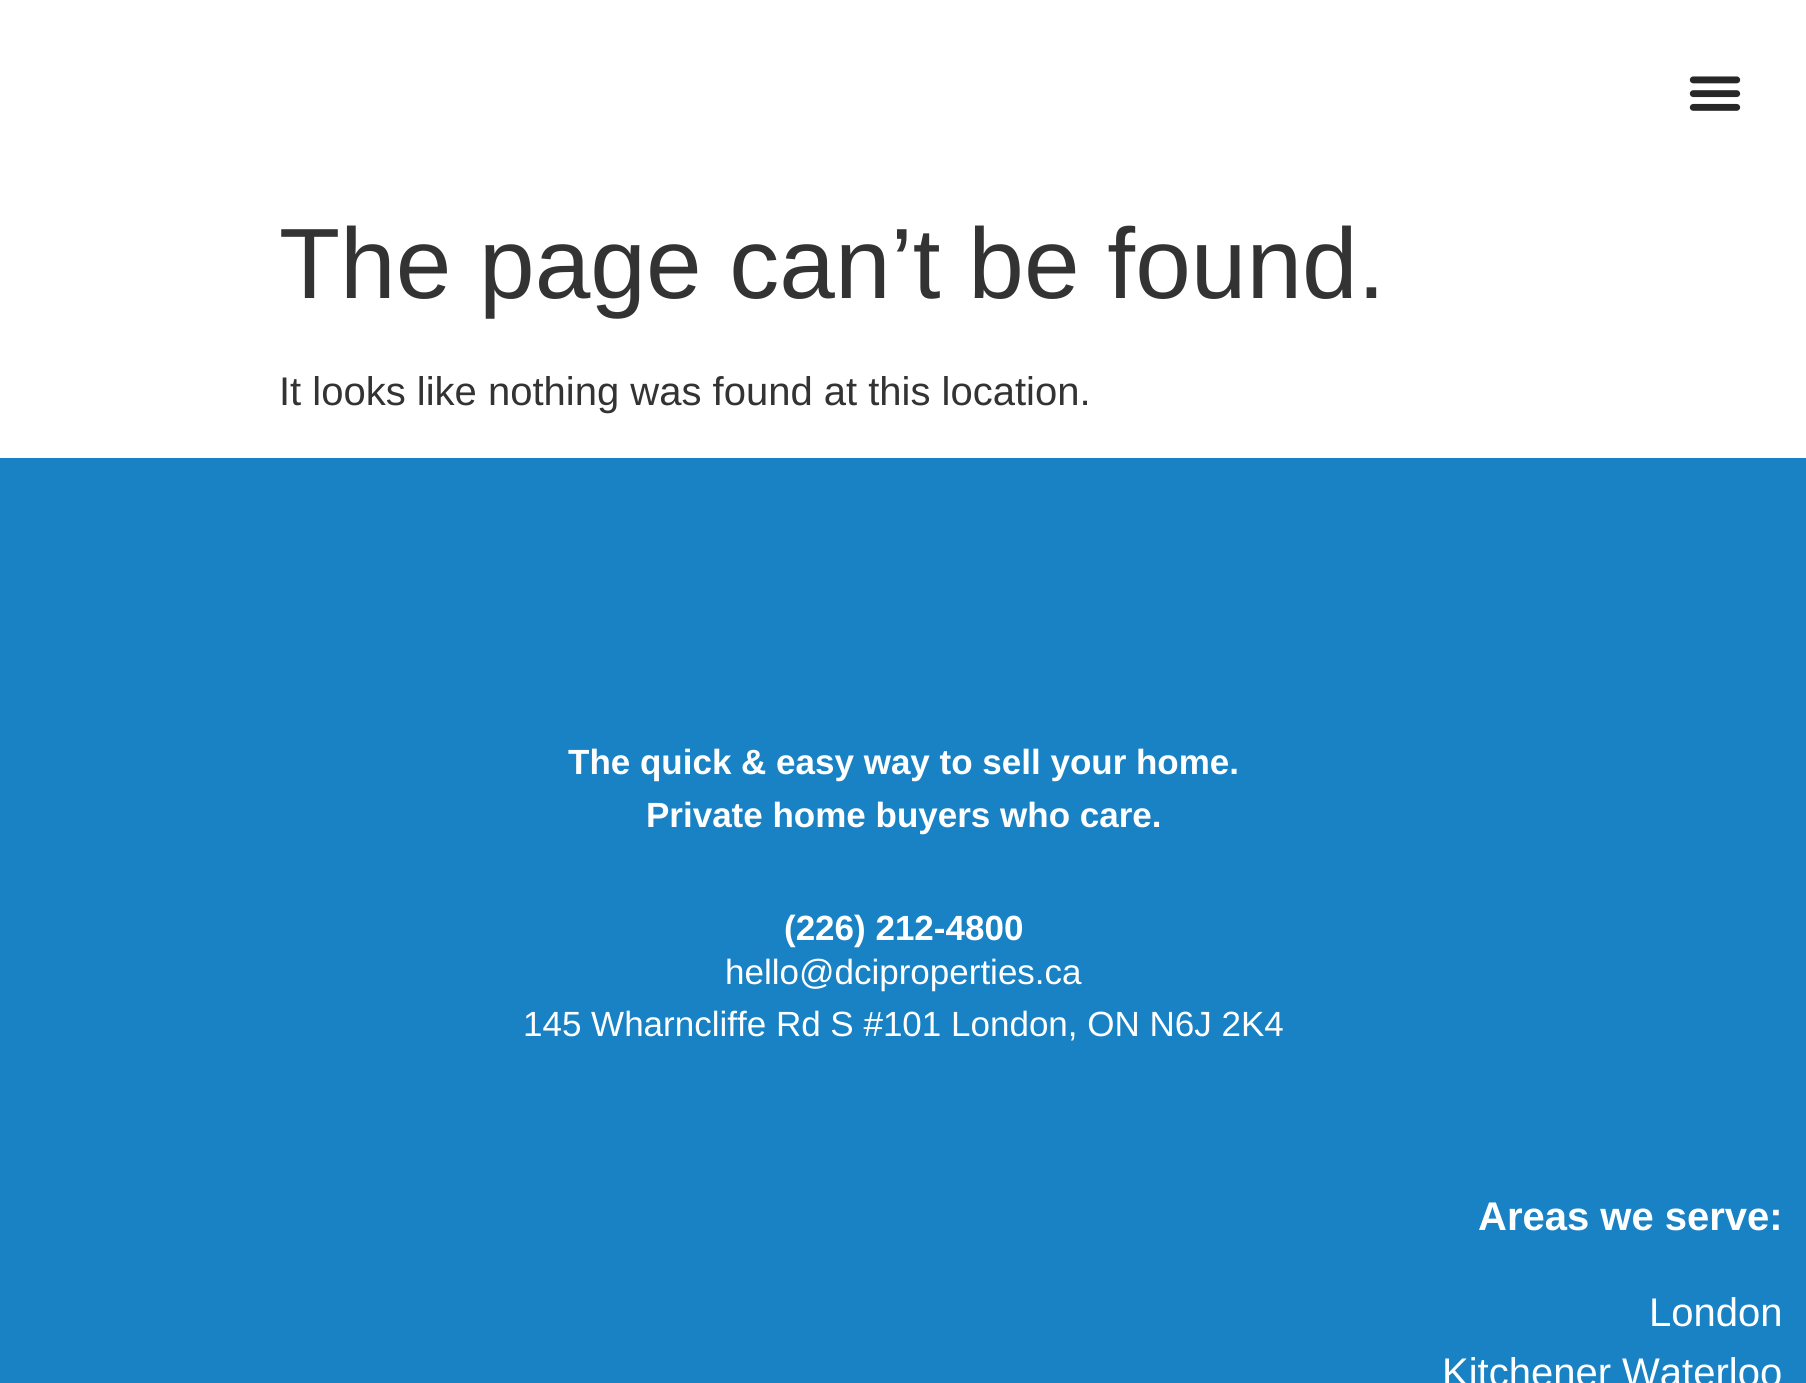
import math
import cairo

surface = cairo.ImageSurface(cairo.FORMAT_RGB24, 1806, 1383)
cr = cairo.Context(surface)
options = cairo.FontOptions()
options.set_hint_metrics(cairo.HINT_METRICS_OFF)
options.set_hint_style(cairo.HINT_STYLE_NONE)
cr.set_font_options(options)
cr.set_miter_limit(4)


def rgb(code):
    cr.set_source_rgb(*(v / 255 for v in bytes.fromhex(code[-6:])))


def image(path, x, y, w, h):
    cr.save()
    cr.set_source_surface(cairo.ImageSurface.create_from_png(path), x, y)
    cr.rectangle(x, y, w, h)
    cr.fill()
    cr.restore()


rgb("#ffffff")
cr.paint()
image("img/1.png", 1689, 76, 52, 35)
rgb("#1982c4")
cr.rectangle(0, 458, 1806, 925)
cr.fill()
cr.select_font_face("Liberation Sans")
cr.set_font_size(100)
rgb("#333333")
cr.move_to(279, 298)
cr.show_text("The page can’t be found.")
cr.set_font_size(40)
cr.move_to(279, 405)
cr.show_text("It looks like nothing was found at this location.")
cr.select_font_face("Liberation Sans", cairo.FONT_SLANT_NORMAL, cairo.FONT_WEIGHT_BOLD)
cr.set_font_size(35)
rgb("#ffffff")
for x, y, s in [
    (568, 774, "The quick & easy way to sell your home."),
    (646, 827, "Private home buyers who care."),
    (784, 940, "(226) 212-4800"),
]:
    cr.move_to(x, y)
    cr.show_text(s)
cr.select_font_face("Liberation Sans")
cr.move_to(725, 984)
cr.show_text("hello@dciproperties.ca")
cr.move_to(523, 1036)
cr.show_text("145 Wharncliffe Rd S #101 London, ON N6J 2K4")
cr.select_font_face("Liberation Sans", cairo.FONT_SLANT_NORMAL, cairo.FONT_WEIGHT_BOLD)
cr.set_font_size(40)
cr.move_to(1478, 1230)
cr.show_text("Areas we serve:")
cr.select_font_face("Liberation Sans")
cr.move_to(1649, 1326)
cr.show_text("London")
cr.move_to(1442, 1386)
cr.show_text("Kitchener Waterloo")
surface.write_to_png("page.png")
